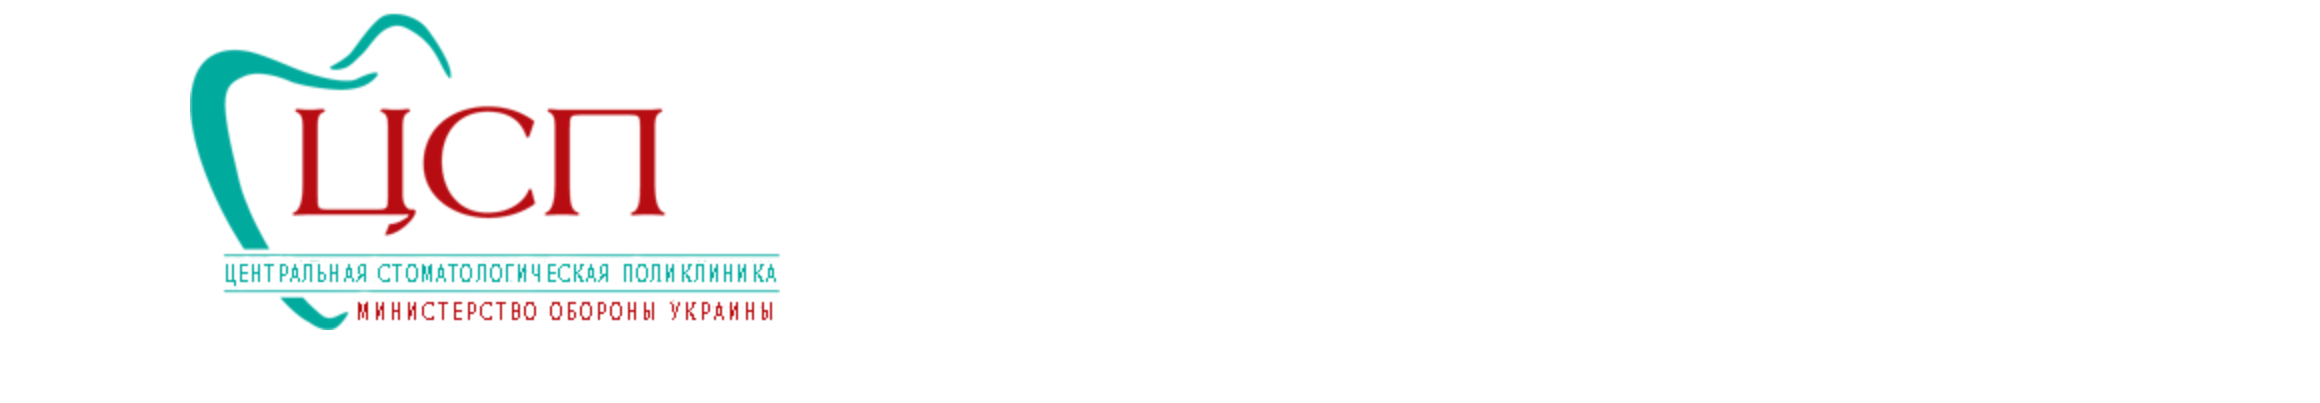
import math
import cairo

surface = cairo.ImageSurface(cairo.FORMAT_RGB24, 2320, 403)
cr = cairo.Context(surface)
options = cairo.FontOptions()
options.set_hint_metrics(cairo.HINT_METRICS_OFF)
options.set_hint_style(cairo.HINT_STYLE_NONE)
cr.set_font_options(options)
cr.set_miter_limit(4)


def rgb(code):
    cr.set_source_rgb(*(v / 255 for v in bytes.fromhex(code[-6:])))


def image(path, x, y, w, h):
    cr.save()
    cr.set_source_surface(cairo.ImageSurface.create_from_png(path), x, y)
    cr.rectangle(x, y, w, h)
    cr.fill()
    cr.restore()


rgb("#ffffff")
cr.paint()
image("img/1.png", 190, 13, 590, 317)
surface.write_to_png("page.png")
